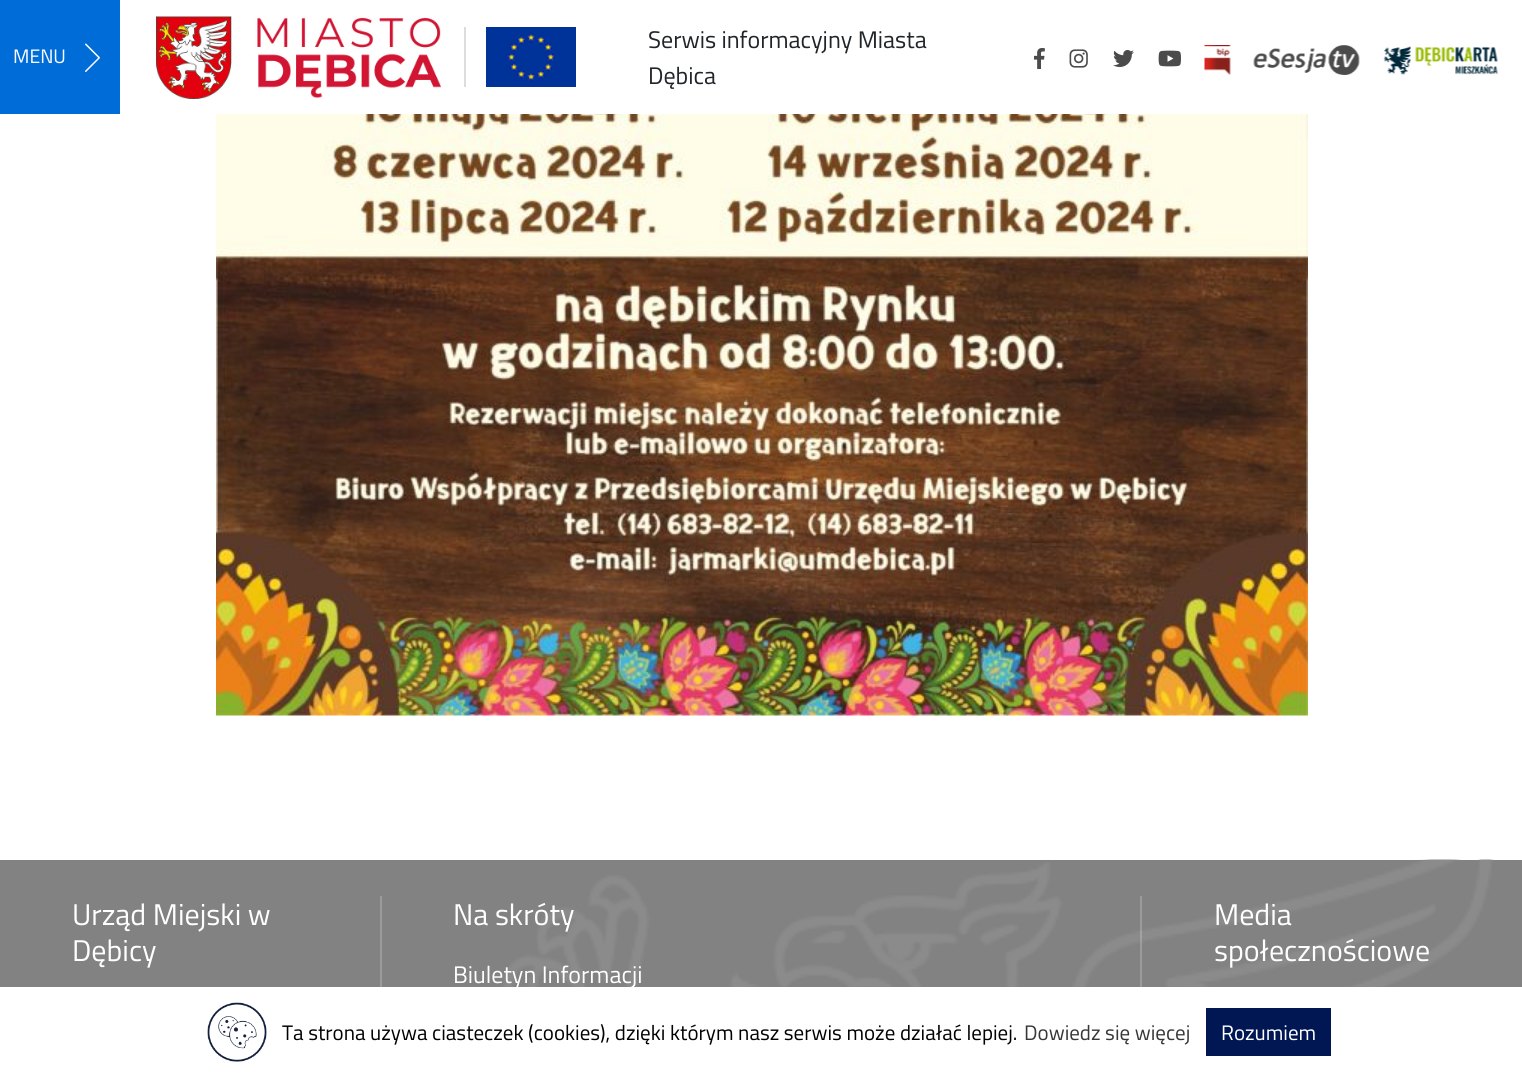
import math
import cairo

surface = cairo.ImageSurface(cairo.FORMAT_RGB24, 1522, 1076)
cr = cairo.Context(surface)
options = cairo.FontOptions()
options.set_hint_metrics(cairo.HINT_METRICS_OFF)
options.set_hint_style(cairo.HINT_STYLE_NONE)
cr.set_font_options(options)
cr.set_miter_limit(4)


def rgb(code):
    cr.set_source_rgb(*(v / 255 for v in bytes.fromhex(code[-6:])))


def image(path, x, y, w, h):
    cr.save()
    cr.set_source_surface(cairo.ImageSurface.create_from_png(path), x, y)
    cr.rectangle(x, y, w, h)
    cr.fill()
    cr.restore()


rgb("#ffffff")
cr.paint()
rgb("#006cd7")
cr.rectangle(0, 0, 120, 114)
cr.fill()
image("img/1.png", 85, 43, 15, 29)
image("img/2.png", 156, 16, 285, 83)
rgb("#dddddd")
cr.rectangle(464, 27, 2, 60)
cr.fill()
image("img/3.png", 486, 27, 90, 60)
image("img/4.png", 1034, 48, 11, 21)
image("img/5.png", 1069, 49, 19, 19)
image("img/6.png", 1113, 50, 21, 17)
image("img/7.png", 1158, 50, 23, 17)
image("img/8.png", 1204, 45, 27, 30)
image("img/9.png", 1253, 45, 107, 30)
image("img/10.png", 1383, 46, 116, 29)
image("img/11.png", 216, 114, 1092, 602)
rgb("#828282")
cr.rectangle(0, 860, 1522, 127)
cr.fill()
image("img/12.png", 503, 859, 992, 128)
rgb("#9b9b9b")
cr.rectangle(380, 896, 2, 91)
cr.fill()
cr.set_source_rgba(1, 1, 1, 0.2)
cr.rectangle(1140, 896, 2, 91)
cr.fill()
image("img/13.png", 207, 1002, 60, 60)
rgb("#001754")
cr.rectangle(1206, 1008, 125, 48)
cr.fill()
cr.select_font_face("Titillium Web")
cr.set_font_size(19.5)
rgb("#ffffff")
cr.move_to(13, 63)
cr.show_text("MENU")
cr.set_font_size(24)
rgb("#212529")
cr.move_to(648, 48)
cr.show_text("Serwis informacyjny Miasta")
cr.move_to(648, 84)
cr.show_text("Dębica")
cr.set_font_size(30)
rgb("#ffffff")
for x, y, s in [
    (72, 925, "Urząd Miejski w"),
    (72, 961, "Dębicy"),
    (453, 925, "Na skróty"),
]:
    cr.move_to(x, y)
    cr.show_text(s)
cr.set_font_size(24)
cr.move_to(453, 983)
cr.show_text("Biuletyn Informacji")
cr.set_font_size(30)
cr.move_to(1214, 925)
cr.show_text("Media")
cr.move_to(1214, 961)
cr.show_text("społecznościowe")
cr.set_font_size(21)
rgb("#000000")
cr.move_to(282, 1040)
cr.show_text("Ta strona używa ciasteczek (cookies), dzięki którym nasz serwis może działać lepiej.")
rgb("#373737")
cr.move_to(1024, 1040)
cr.show_text("Dowiedz się więcej")
rgb("#ffffff")
cr.move_to(1221, 1040)
cr.show_text("Rozumiem")
surface.write_to_png("page.png")
